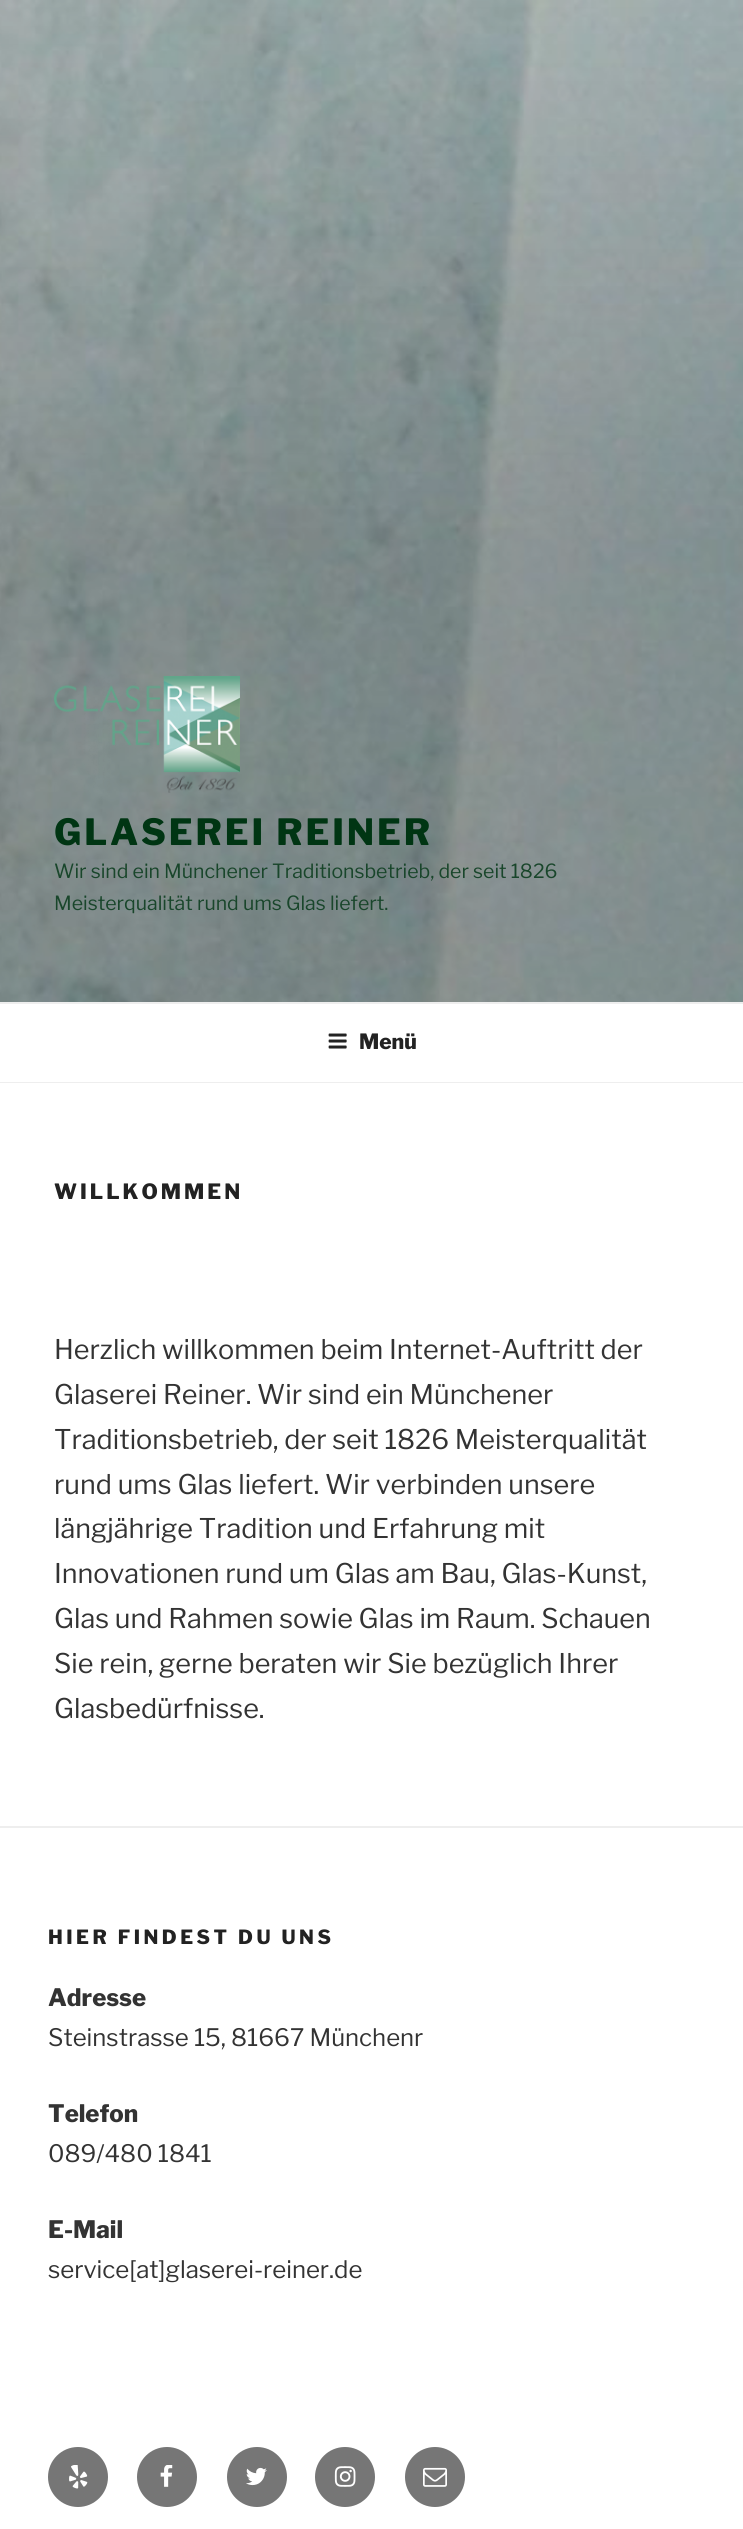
import math
import cairo

surface = cairo.ImageSurface(cairo.FORMAT_RGB24, 743, 2529)
cr = cairo.Context(surface)
options = cairo.FontOptions()
options.set_hint_metrics(cairo.HINT_METRICS_OFF)
options.set_hint_style(cairo.HINT_STYLE_NONE)
cr.set_font_options(options)
cr.set_miter_limit(4)


def rgb(code):
    cr.set_source_rgb(*(v / 255 for v in bytes.fromhex(code[-6:])))


def tracked(x, y, s, letter, word):
    cr.move_to(x, y)
    for ch in s:
        cr.show_text(ch)
        cr.rel_move_to(letter + word * (ch == ' '), 0)


def image(path, x, y, w, h):
    cr.save()
    cr.set_source_surface(cairo.ImageSurface.create_from_png(path), x, y)
    cr.rectangle(x, y, w, h)
    cr.fill()
    cr.restore()


rgb("#ffffff")
cr.paint()
image("img/1.png", 0, 0, 743, 1002)
image("img/2.png", 54, 676, 186, 117)
rgb("#eeeeee")
cr.rectangle(0, 1002, 743, 2)
cr.fill()
cr.rectangle(0, 1082, 743, 1)
cr.fill()
image("img/3.png", 328, 1033, 19, 16)
cr.rectangle(0, 1826, 743, 2)
cr.fill()
rgb("#767676")
cr.arc(78, 2477, 30, 0, 2 * math.pi)
cr.fill()
image("img/4.png", 69, 2465, 19, 24)
cr.arc(167, 2477, 30, 0, 2 * math.pi)
cr.fill()
image("img/5.png", 160, 2465, 13, 22)
cr.arc(257, 2477, 30, 0, 2 * math.pi)
cr.fill()
image("img/6.png", 246, 2467, 21, 19)
cr.arc(345, 2477, 30, 0, 2 * math.pi)
cr.fill()
image("img/7.png", 334, 2466, 22, 21)
cr.arc(435, 2477, 30, 0, 2 * math.pi)
cr.fill()
image("img/8.png", 423, 2467, 24, 20)
cr.select_font_face("Libre Franklin ExtraBold")
cr.set_font_size(36)
rgb("#003513")
tracked(54, 845, "GLASEREI REINER", 2.9, 0)
cr.select_font_face("Libre Franklin")
cr.set_font_size(19.5)
rgb("#19462b")
cr.move_to(54, 878)
cr.show_text("Wir sind ein Münchener Traditionsbetrieb, der seit 1826")
cr.move_to(54, 910)
cr.show_text("Meisterqualität rund ums Glas liefert.")
cr.select_font_face("Libre Franklin ExtraBold")
cr.set_font_size(21)
rgb("#222222")
cr.move_to(359, 1049)
cr.show_text("Menü")
tracked(54, 1199, "WILLKOMMEN", 3, 0)
cr.select_font_face("Libre Franklin")
cr.set_font_size(27)
rgb("#333333")
for x, y, s in [
    (54, 1359, "Herzlich willkommen beim Internet-Auftritt der"),
    (54, 1404, "Glaserei Reiner. Wir sind ein Münchener"),
    (54, 1449, "Traditionsbetrieb, der seit 1826 Meisterqualität"),
    (54, 1494, "rund ums Glas liefert. Wir verbinden unsere"),
    (54, 1538, "längjährige Tradition und Erfahrung mit"),
    (54, 1583, "Innovationen rund um Glas am Bau, Glas-Kunst,"),
    (54, 1628, "Glas und Rahmen sowie Glas im Raum. Schauen"),
    (54, 1673, "Sie rein, gerne beraten wir Sie bezüglich Ihrer"),
    (54, 1718, "Glasbedürfnisse."),
]:
    cr.move_to(x, y)
    cr.show_text(s)
cr.select_font_face("Libre Franklin ExtraBold")
cr.set_font_size(19.5)
rgb("#222222")
tracked(48, 1944, "HIER FINDEST DU UNS", 3.5, 0)
cr.set_font_size(24)
rgb("#333333")
cr.move_to(48, 2006)
cr.show_text("Adresse")
cr.select_font_face("Libre Franklin")
cr.move_to(48, 2046)
cr.show_text("Steinstrasse 15, 81667 Münchenr")
cr.select_font_face("Libre Franklin ExtraBold")
cr.move_to(48, 2122)
cr.show_text("Telefon")
cr.select_font_face("Libre Franklin")
cr.move_to(48, 2162)
cr.show_text("089/480 1841")
cr.select_font_face("Libre Franklin ExtraBold")
cr.move_to(48, 2238)
cr.show_text("E-Mail")
cr.select_font_face("Libre Franklin")
cr.move_to(48, 2278)
cr.show_text("service[at]glaserei-reiner.de")
surface.write_to_png("page.png")
